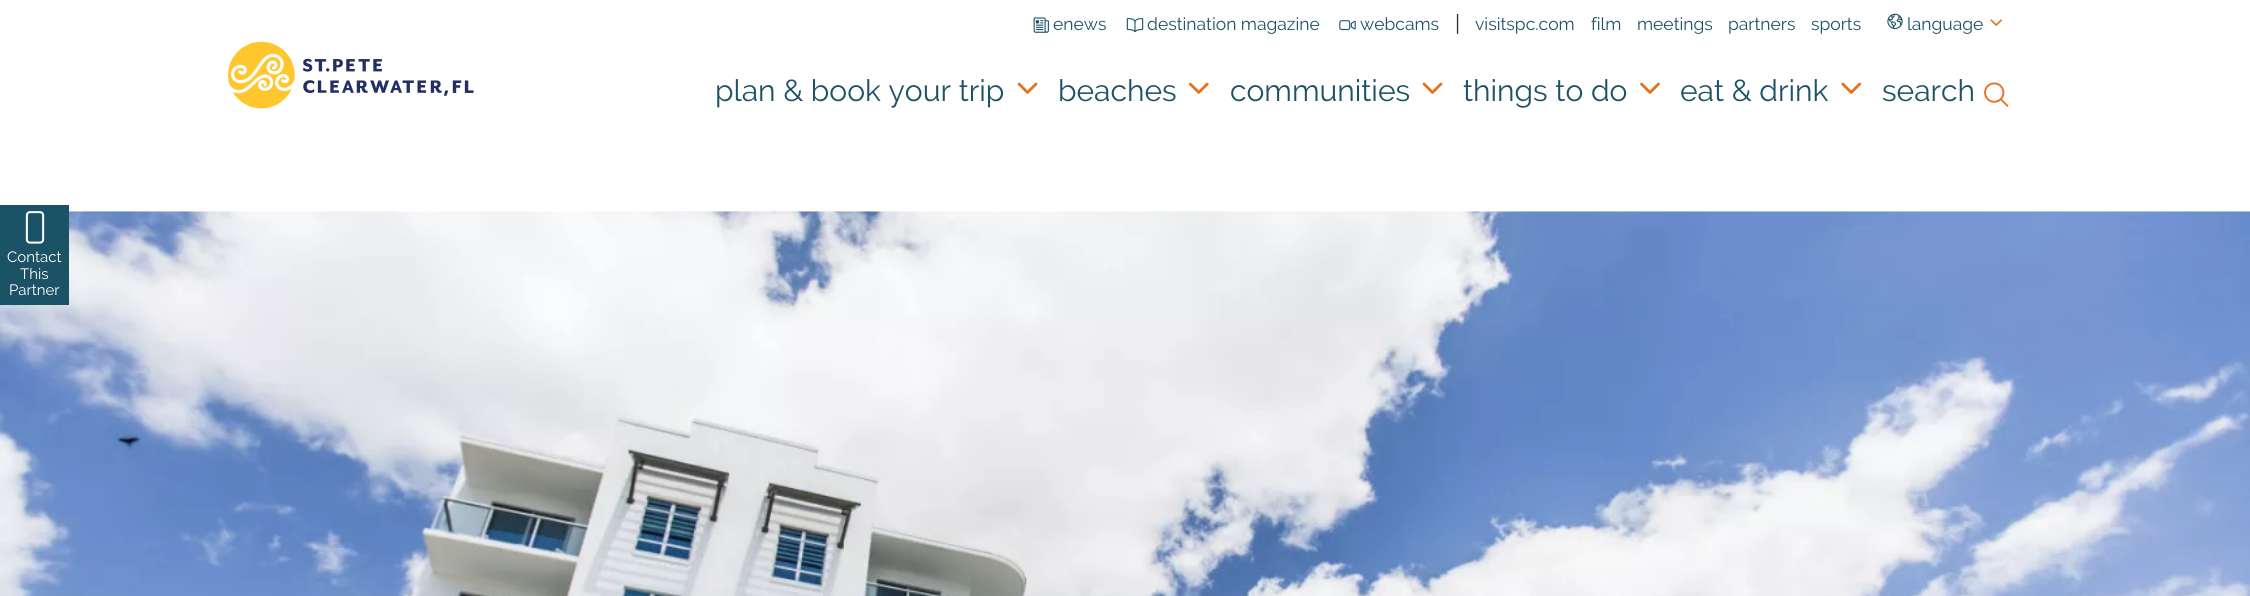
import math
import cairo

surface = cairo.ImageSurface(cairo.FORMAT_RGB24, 2250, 596)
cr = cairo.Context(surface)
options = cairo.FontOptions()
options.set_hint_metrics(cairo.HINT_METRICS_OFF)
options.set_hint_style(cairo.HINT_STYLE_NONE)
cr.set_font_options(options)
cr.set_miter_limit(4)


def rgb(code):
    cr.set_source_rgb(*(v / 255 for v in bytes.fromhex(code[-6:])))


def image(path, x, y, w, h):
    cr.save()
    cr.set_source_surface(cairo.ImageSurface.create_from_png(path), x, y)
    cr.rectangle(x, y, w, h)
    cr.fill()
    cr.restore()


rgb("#ffffff")
cr.paint()
image("img/1.png", 228, 41, 246, 68)
image("img/2.png", 1033, 17, 16, 16)
image("img/3.png", 1126, 18, 18, 15)
image("img/4.png", 1339, 20, 17, 11)
image("img/5.png", 1887, 13, 16, 16)
image("img/6.png", 1990, 19, 12, 7)
image("img/7.png", 1017, 82, 21, 12)
image("img/8.png", 1188, 82, 21, 12)
image("img/7.png", 1422, 82, 21, 12)
image("img/9.png", 1640, 82, 20, 12)
image("img/10.png", 1841, 82, 21, 12)
image("img/11.png", 1984, 82, 25, 25)
image("img/12.png", 0, 211, 2250, 385)
rgb("#1b5266")
cr.rectangle(0, 205, 69, 100)
cr.fill()
image("img/13.png", 25, 211, 20, 33)
cr.select_font_face("Raleway")
cr.set_font_size(17.5)
for x, y, s in [
    (1053, 30, "enews"),
    (1147, 30, "destination magazine"),
    (1360, 30, "webcams"),
]:
    cr.move_to(x, y)
    cr.show_text(s)
cr.set_font_size(22)
rgb("#2c2c2c")
cr.move_to(1455, 31)
cr.show_text("|")
cr.set_font_size(17.5)
rgb("#1b5266")
for x, y, s in [
    (1475, 30, "visitspc.com"),
    (1591, 30, "film"),
    (1637, 30, "meetings"),
    (1728, 30, "partners"),
    (1811, 30, "sports"),
    (1907, 30, "language"),
]:
    cr.move_to(x, y)
    cr.show_text(s)
cr.set_font_size(30)
for x, y, s in [
    (715, 101, "plan & book your trip"),
    (1058, 101, "beaches"),
    (1230, 101, "communities"),
    (1463, 101, "things to do"),
    (1680, 101, "eat & drink"),
    (1882, 101, "search"),
]:
    cr.move_to(x, y)
    cr.show_text(s)
cr.set_font_size(15)
rgb("#ffffff")
for x, y, s in [
    (7, 262, "Contact"),
    (20, 279, "This"),
    (9, 295, "Partner"),
]:
    cr.move_to(x, y)
    cr.show_text(s)
surface.write_to_png("page.png")
